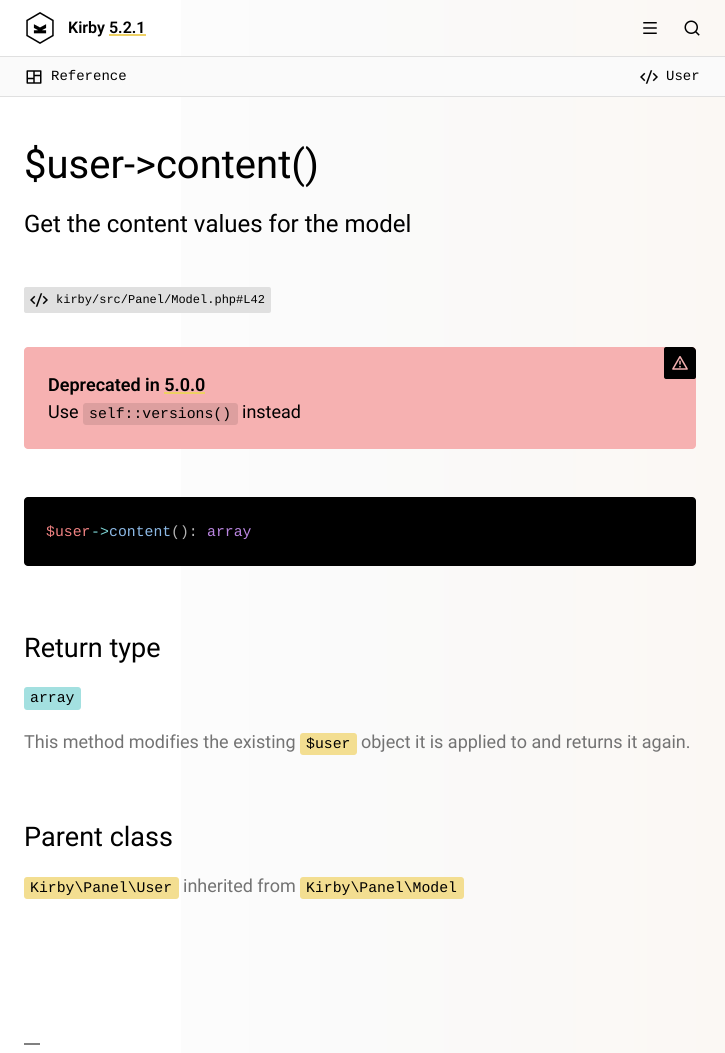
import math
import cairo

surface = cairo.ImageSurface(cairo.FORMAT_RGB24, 725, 1053)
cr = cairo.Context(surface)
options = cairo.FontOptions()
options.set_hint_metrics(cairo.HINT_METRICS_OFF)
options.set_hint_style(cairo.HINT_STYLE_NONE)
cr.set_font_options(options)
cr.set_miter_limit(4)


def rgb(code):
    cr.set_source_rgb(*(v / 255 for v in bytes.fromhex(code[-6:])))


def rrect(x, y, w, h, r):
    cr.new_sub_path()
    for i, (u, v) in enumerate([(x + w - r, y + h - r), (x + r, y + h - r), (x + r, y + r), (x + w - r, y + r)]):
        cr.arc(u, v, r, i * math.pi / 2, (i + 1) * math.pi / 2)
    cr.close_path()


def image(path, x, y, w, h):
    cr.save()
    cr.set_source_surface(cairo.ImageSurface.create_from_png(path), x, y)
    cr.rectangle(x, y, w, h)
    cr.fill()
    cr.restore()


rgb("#ffffff")
cr.paint()
gradient = cairo.LinearGradient(0, 527, 725, 527)
gradient.add_color_stop_rgba(0, 1, 1, 1, 1)
gradient.add_color_stop_rgba(0.5, 0.98, 0.98, 0.98, 1)
gradient.add_color_stop_rgba(1, 0.984, 0.973, 0.957, 1)
cr.set_source(gradient)
cr.rectangle(181, 0, 544, 1053)
cr.fill()
rgb("#e0e0e0")
cr.rectangle(0, 56, 725, 1)
cr.fill()
image("img/1.png", 26, 12, 28, 32)
image("img/2.png", 643, 22, 14, 12)
image("img/3.png", 684, 20, 16, 16)
rgb("#fafafa")
cr.rectangle(0, 57, 725, 39)
cr.fill()
rgb("#e0e0e0")
cr.rectangle(0, 96, 725, 1)
cr.fill()
image("img/4.png", 26, 70, 16, 14)
image("img/5.png", 640, 70, 18, 14)
rrect(24, 287, 247, 26, 2)
cr.fill()
image("img/6.png", 30, 293, 18, 14)
rgb("#f6b1b1")
rrect(24, 347, 672, 102, 4)
cr.fill()
rgb("#000000")
cr.new_path()
cr.move_to(666, 347)
cr.line_to(692, 347)
cr.curve_to(694, 347, 696, 349, 696, 351)
cr.line_to(696, 377)
cr.curve_to(696, 378, 695, 379, 694, 379)
cr.line_to(666, 379)
cr.curve_to(665, 379, 664, 378, 664, 377)
cr.line_to(664, 349)
cr.curve_to(664, 348, 665, 347, 666, 347)
cr.close_path()
cr.fill()
image("img/7.png", 672, 356, 16, 14)
rgb("#dd9f9f")
rrect(83, 403, 155, 22, 3)
cr.fill()
rgb("#000000")
rrect(24, 497, 672, 69, 4)
cr.fill()
rgb("#a3e0e0")
rrect(24, 687, 57, 23, 3)
cr.fill()
rgb("#f3de91")
rrect(300, 733, 57, 22, 3)
cr.fill()
rrect(24, 877, 155, 22, 3)
cr.fill()
rrect(300, 877, 164, 22, 3)
cr.fill()
rgb("#808080")
cr.rectangle(24, 1043, 16, 2)
cr.fill()
cr.select_font_face("Roboto SemiBold")
cr.set_font_size(16)
rgb("#000000")
cr.move_to(68, 33)
cr.show_text("Kirby 5.2.1")
rgb("#eed063")
cr.rectangle(109, 34, 37, 2)
cr.fill()
cr.select_font_face("Liberation Mono")
cr.set_font_size(14)
rgb("#000000")
cr.move_to(51, 80)
cr.show_text("Reference")
cr.move_to(666, 80)
cr.show_text("User")
cr.select_font_face("Roboto")
cr.set_font_size(40)
cr.move_to(24, 178)
cr.show_text("$user->content()")
cr.set_font_size(24)
cr.move_to(24, 232)
cr.show_text("Get the content values for the model")
cr.select_font_face("Liberation Mono")
cr.set_font_size(12)
cr.move_to(56, 303)
cr.show_text("kirby/src/Panel/Model.php#L42")
cr.select_font_face("Roboto SemiBold")
cr.set_font_size(18)
cr.move_to(48, 391)
cr.show_text("Deprecated in 5.0.0")
rgb("#eed063")
cr.rectangle(164, 392, 41, 2)
cr.fill()
cr.select_font_face("Roboto")
rgb("#000000")
cr.move_to(48, 418)
cr.show_text("Use")
cr.select_font_face("Liberation Mono")
cr.set_font_size(14.8)
cr.move_to(89, 418)
cr.show_text("self::versions()")
cr.select_font_face("Roboto")
cr.set_font_size(18)
cr.move_to(242, 418)
cr.show_text("instead")
cr.select_font_face("Liberation Mono")
cr.set_font_size(14.8)
rgb("#f18383")
cr.move_to(46, 536)
cr.show_text("$user")
rgb("#7dd4d4")
cr.move_to(91, 536)
cr.show_text("->")
rgb("#8dbae7")
cr.move_to(109, 536)
cr.show_text("content")
rgb("#b3b3b3")
cr.move_to(171, 536)
cr.show_text("():")
rgb("#ba85e0")
cr.move_to(207, 536)
cr.show_text("array")
cr.select_font_face("Roboto")
cr.set_font_size(27)
rgb("#000000")
cr.move_to(24, 657)
cr.show_text("Return type")
cr.select_font_face("Liberation Mono")
cr.set_font_size(14.8)
cr.move_to(30, 702)
cr.show_text("array")
cr.select_font_face("Roboto")
cr.set_font_size(18)
rgb("#737373")
cr.move_to(24, 748)
cr.show_text("This method modifies the existing")
cr.select_font_face("Liberation Mono")
cr.set_font_size(14.8)
rgb("#000000")
cr.move_to(306, 748)
cr.show_text("$user")
cr.select_font_face("Roboto")
cr.set_font_size(18)
rgb("#737373")
cr.move_to(361, 748)
cr.show_text("object it is applied to and returns it again.")
cr.set_font_size(27)
rgb("#000000")
cr.move_to(24, 846)
cr.show_text("Parent class")
cr.select_font_face("Liberation Mono")
cr.set_font_size(14.8)
cr.move_to(30, 892)
cr.show_text("Kirby\\Panel\\User")
cr.select_font_face("Roboto")
cr.set_font_size(18)
rgb("#737373")
cr.move_to(183, 892)
cr.show_text("inherited from")
cr.select_font_face("Liberation Mono")
cr.set_font_size(14.8)
rgb("#000000")
cr.move_to(306, 892)
cr.show_text("Kirby\\Panel\\Model")
surface.write_to_png("page.png")
